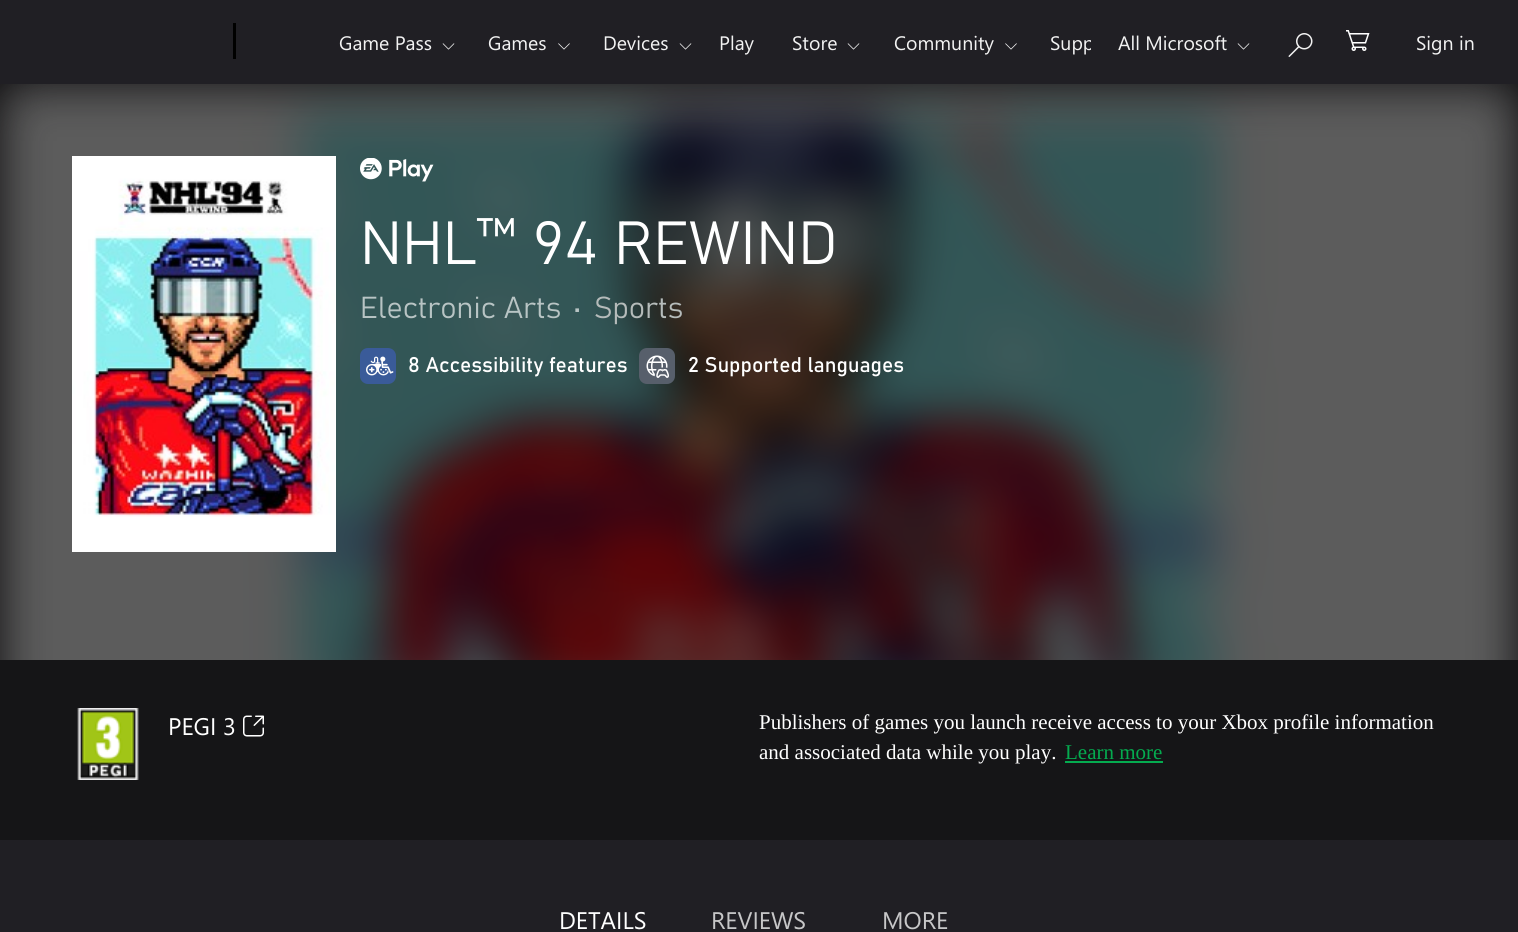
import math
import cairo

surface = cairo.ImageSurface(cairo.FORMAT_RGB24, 1518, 932)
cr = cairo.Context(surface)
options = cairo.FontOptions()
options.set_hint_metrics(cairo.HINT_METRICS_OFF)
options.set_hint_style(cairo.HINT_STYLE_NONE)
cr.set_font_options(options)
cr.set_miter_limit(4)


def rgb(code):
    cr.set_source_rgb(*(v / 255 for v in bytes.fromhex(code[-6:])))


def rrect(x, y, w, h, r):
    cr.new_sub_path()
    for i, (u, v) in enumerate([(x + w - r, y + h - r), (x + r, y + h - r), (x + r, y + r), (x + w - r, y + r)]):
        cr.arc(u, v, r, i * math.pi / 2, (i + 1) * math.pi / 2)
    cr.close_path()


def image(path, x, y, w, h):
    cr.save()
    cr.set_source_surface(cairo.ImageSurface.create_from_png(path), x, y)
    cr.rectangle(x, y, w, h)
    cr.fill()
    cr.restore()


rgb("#201f24")
cr.paint()
rgb("#0c0b0d")
cr.rectangle(0, 84, 1518, 576)
cr.fill()
rgb("#000000")
cr.rectangle(233, 23, 3, 36)
cr.fill()
image("img/1.png", 442, 43, 13, 7)
image("img/2.png", 558, 43, 12, 7)
image("img/1.png", 679, 43, 13, 7)
image("img/1.png", 847, 43, 13, 7)
image("img/2.png", 1005, 43, 12, 7)
image("img/1.png", 1237, 43, 13, 7)
image("img/3.png", 1288, 33, 25, 24)
image("img/4.png", 1346, 30, 24, 21)
image("img/5.png", 0, 84, 1518, 576)
image("img/6.png", 72, 156, 264, 396)
image("img/7.png", 360, 158, 74, 24)
rgb("#3a5b99")
rrect(360, 348, 36, 36, 8)
cr.fill()
image("img/8.png", 366, 356, 28, 20)
rgb("#575f6b")
rrect(639, 348, 36, 36, 8)
cr.fill()
image("img/9.png", 646, 355, 23, 23)
rgb("#151517")
cr.rectangle(0, 660, 1518, 180)
cr.fill()
image("img/10.png", 77, 708, 62, 72)
image("img/11.png", 243, 715, 21, 22)
rgb("#04ab4f")
cr.rectangle(1065, 761, 98, 2)
cr.fill()
cr.select_font_face("Segoe UI")
cr.set_font_size(19.5)
rgb("#f2f2f2")
for x, y, s in [
    (339, 50, "Game Pass"),
    (488, 50, "Games"),
    (603, 50, "Devices"),
    (719, 50, "Play"),
    (792, 50, "Store"),
    (894, 50, "Community"),
]:
    cr.move_to(x, y)
    cr.show_text(s)
cr.save()
cr.rectangle(317, 0, 774, 81)
cr.clip()
cr.move_to(1050, 50)
cr.show_text("Supp")
cr.restore()
cr.move_to(1118, 50)
cr.show_text("All Microsoft")
cr.move_to(1416, 50)
cr.show_text("Sign in")
cr.select_font_face("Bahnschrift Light")
cr.set_font_size(60)
rgb("#ffffff")
cr.move_to(360, 264)
cr.show_text("NHL™ 94 REWIND")
cr.set_font_size(30)
rgb("#b8c4c4")
cr.move_to(360, 318)
cr.show_text("Electronic Arts")
cr.move_to(573, 318)
cr.show_text("•")
rgb("#b5bbba")
cr.move_to(594, 318)
cr.show_text("Sports")
cr.select_font_face("Bahnschrift")
cr.set_font_size(21)
rgb("#ffffff")
cr.move_to(408, 372)
cr.show_text("8 Accessibility features")
cr.move_to(688, 372)
cr.show_text("2 Supported languages")
cr.select_font_face("Segoe UI")
cr.set_font_size(24)
cr.move_to(168, 735)
cr.show_text("PEGI 3")
cr.select_font_face("Liberation Serif")
cr.set_font_size(21)
cr.move_to(759, 729)
cr.show_text("Publishers of games you launch receive access to your Xbox profile information")
cr.move_to(759, 759)
cr.show_text("and associated data while you play.")
rgb("#04ab4f")
cr.move_to(1065, 759)
cr.show_text("Learn more")
cr.select_font_face("Segoe UI")
cr.set_font_size(24)
rgb("#ffffff")
cr.move_to(559, 929)
cr.show_text("DETAILS")
rgb("#c7c7c8")
cr.move_to(711, 929)
cr.show_text("REVIEWS")
cr.move_to(882, 929)
cr.show_text("MORE")
surface.write_to_png("page.png")
